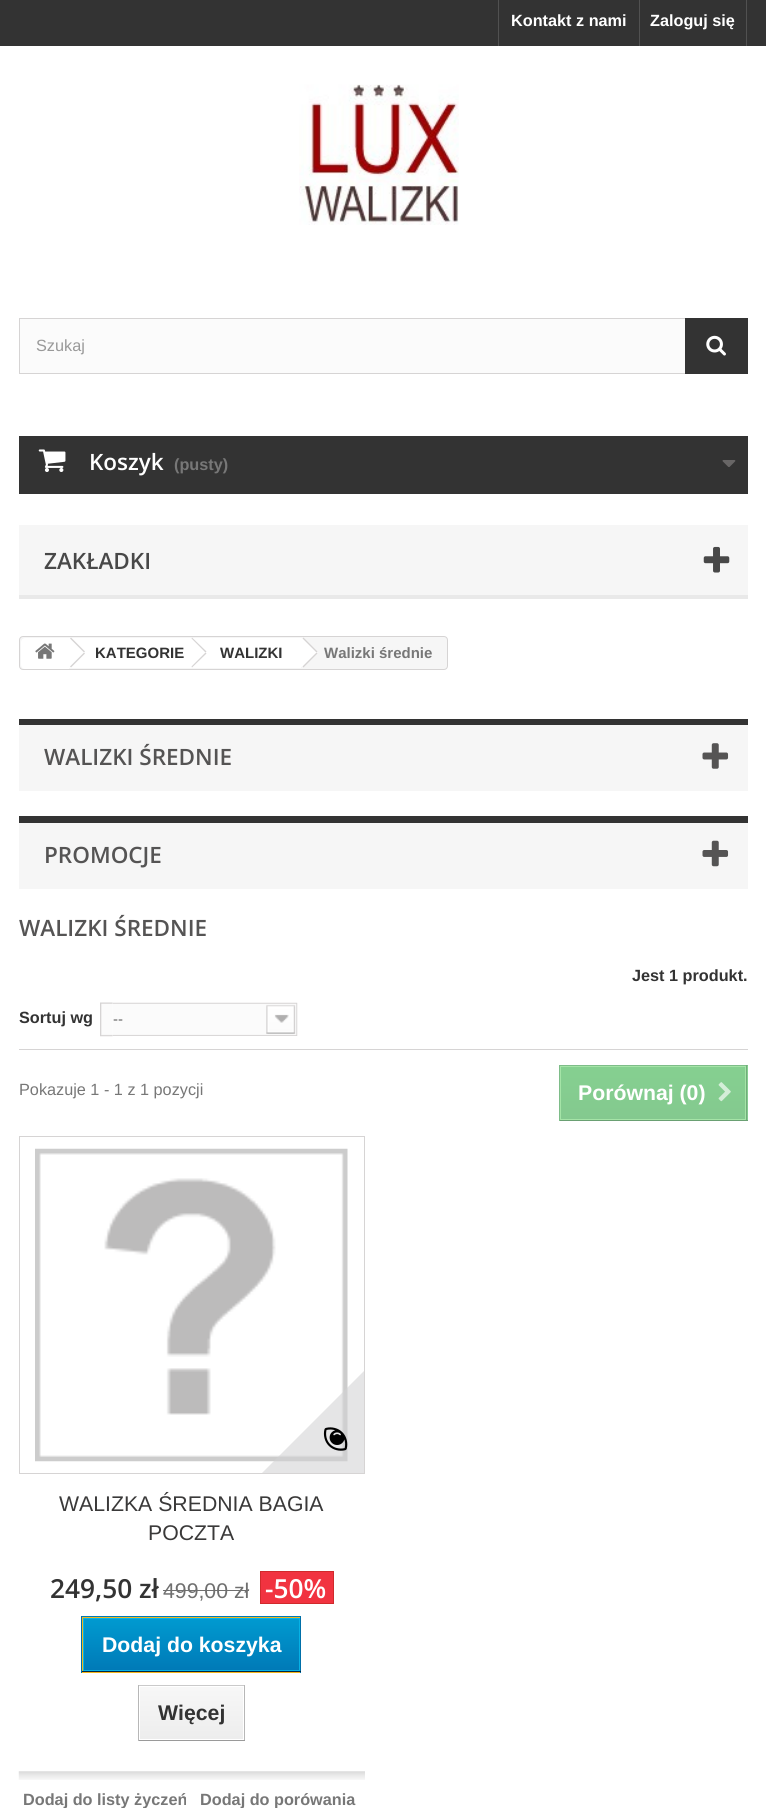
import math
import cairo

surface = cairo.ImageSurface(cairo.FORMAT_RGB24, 766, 1808)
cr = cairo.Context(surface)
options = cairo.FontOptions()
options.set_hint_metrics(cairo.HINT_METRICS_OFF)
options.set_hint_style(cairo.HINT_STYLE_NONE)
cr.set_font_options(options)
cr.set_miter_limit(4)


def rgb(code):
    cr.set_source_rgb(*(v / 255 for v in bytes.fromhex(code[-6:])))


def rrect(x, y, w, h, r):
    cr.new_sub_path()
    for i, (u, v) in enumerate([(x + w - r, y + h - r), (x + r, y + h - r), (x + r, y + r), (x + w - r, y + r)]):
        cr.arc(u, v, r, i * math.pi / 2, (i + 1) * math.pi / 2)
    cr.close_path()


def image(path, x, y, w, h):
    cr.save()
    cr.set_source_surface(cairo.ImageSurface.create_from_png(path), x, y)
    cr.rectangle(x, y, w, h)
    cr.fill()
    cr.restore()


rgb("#ffffff")
cr.paint()
for x, y, w, h, color in [
    (0, 0, 766, 46, "#333333"),
    (498, 0, 1, 46, "#515151"),
    (746, 0, 1, 46, "#515151"),
    (639, 0, 1, 46, "#515151"),
]:
    rgb(color)
    cr.rectangle(x, y, w, h)
    cr.fill()
image("img/1.png", 299, 84, 160, 141)
rgb("#fbfbfb")
cr.rectangle(20, 319, 665, 54)
cr.fill()
cr.rectangle(19.5, 318.5, 728, 55)
rgb("#d6d4d4")
cr.set_line_width(1)
cr.stroke()
rgb("#333333")
cr.rectangle(685, 318, 63, 56)
cr.fill()
image("img/2.png", 706, 335, 20, 21)
cr.rectangle(19, 436, 729, 58)
cr.fill()
image("img/3.png", 38, 449, 28, 23)
image("img/4.png", 722, 460, 14, 7)
rgb("#f6f6f6")
cr.rectangle(19, 525, 729, 70)
cr.fill()
rgb("#e9e9e9")
cr.rectangle(19, 595, 729, 4)
cr.fill()
image("img/5.png", 703, 546, 27, 27)
rgb("#f6f6f6")
rrect(19.5, 636.5, 428, 33, 3.5)
cr.fill_preserve()
rgb("#d6d4d4")
cr.stroke()
rgb("#ffffff")
cr.new_path()
cr.move_to(25, 638)
cr.line_to(69, 638)
cr.line_to(69, 669)
cr.line_to(25, 669)
cr.curve_to(23, 669, 21, 667, 21, 665)
cr.line_to(21, 642)
cr.curve_to(21, 640, 23, 638, 25, 638)
cr.close_path()
cr.fill()
image("img/6.png", 35, 643, 20, 16)
cr.rectangle(69, 638, 124, 30)
cr.fill()
rgb("#d6d4d4")
cr.new_path()
cr.move_to(71, 637.5)
cr.line_to(85, 651.5)
cr.line_to(84, 652.5)
cr.line_to(70, 638.5)
cr.close_path()
cr.fill()
cr.new_path()
cr.move_to(84, 652.5)
cr.line_to(85, 653.5)
cr.line_to(71, 667.5)
cr.line_to(70, 666.5)
cr.close_path()
cr.fill()
rgb("#ffffff")
cr.new_path()
cr.move_to(205.5, 638.5)
cr.curve_to(205, 638, 204.5, 638, 204, 638)
cr.curve_to(202, 638, 201.5, 639, 200, 640.5)
cr.line_to(191.5, 648.5)
cr.curve_to(188, 652, 188, 653, 191.5, 656.5)
cr.line_to(196, 660.5)
cr.curve_to(204, 668.5, 202, 670, 209.5, 662.5)
cr.line_to(214, 658.5)
cr.curve_to(215.5, 657, 221, 653.5, 218, 650.5)
cr.close_path()
cr.fill()
cr.rectangle(193, 638, 108, 30)
cr.fill()
rgb("#d6d4d4")
cr.new_path()
cr.move_to(192, 637.5)
cr.line_to(206.5, 651.5)
cr.line_to(205.5, 652.5)
cr.line_to(191.5, 638.5)
cr.close_path()
cr.fill()
cr.new_path()
cr.move_to(205.5, 652.5)
cr.line_to(206.5, 653.5)
cr.line_to(192, 667.5)
cr.line_to(191.5, 666.5)
cr.close_path()
cr.fill()
rgb("#ffffff")
cr.new_path()
cr.move_to(304.5, 638.5)
cr.line_to(304, 638)
cr.line_to(301.5, 638)
cr.line_to(288.5, 650.5)
cr.curve_to(287.5, 651.5, 287.5, 653.5, 288.5, 654.5)
cr.line_to(301, 666.5)
cr.curve_to(301.5, 667.5, 303.5, 667.5, 304.5, 666.5)
cr.line_to(316.5, 654.5)
cr.curve_to(317.5, 653.5, 317.5, 651.5, 316.5, 650.5)
cr.close_path()
cr.fill()
rgb("#d6d4d4")
cr.new_path()
cr.move_to(303.5, 637.5)
cr.line_to(317.5, 651.5)
cr.line_to(316.5, 652.5)
cr.line_to(302.5, 638.5)
cr.close_path()
cr.fill()
cr.new_path()
cr.move_to(316.5, 652.5)
cr.line_to(317.5, 653.5)
cr.line_to(303.5, 667.5)
cr.line_to(302.5, 666.5)
cr.close_path()
cr.fill()
rgb("#f6f6f6")
cr.rectangle(19, 725, 729, 66)
cr.fill()
rgb("#333333")
cr.rectangle(19, 719, 729, 6)
cr.fill()
image("img/7.png", 702, 743, 27, 26)
rgb("#f6f6f6")
cr.rectangle(19, 823, 729, 66)
cr.fill()
rgb("#333333")
cr.rectangle(19, 816, 729, 7)
cr.fill()
image("img/8.png", 702, 840, 27, 27)
rgb("#d6d4d4")
cr.rectangle(19, 1049, 729, 1)
cr.fill()
image("img/9.png", 100, 1002, 13, 35)
image("img/10.png", 112, 1002, 186, 34)
gradient = cairo.LinearGradient(653, 1066, 653, 1120)
gradient.add_color_stop_rgba(0, 0.522, 0.816, 0.565, 1)
gradient.add_color_stop_rgba(1, 0.518, 0.788, 0.561, 1)
cr.set_source(gradient)
cr.rectangle(561, 1066, 187, 54)
cr.fill()
for x, y, w, h, color in [
    (559, 1065, 189, 1, "#7ebd89"),
    (746, 1065, 1, 56, "#71ac7a"),
    (559, 1120, 189, 1, "#6aa073"),
    (559, 1065, 1, 56, "#7ebd89"),
]:
    rgb(color)
    cr.rectangle(x, y, w, h)
    cr.fill()
cr.rectangle(560.5, 1066.5, 185, 53)
rgb("#a5e4a7")
cr.stroke()
image("img/11.png", 718, 1082, 13, 20)
cr.rectangle(19.5, 1136.5, 345, 337)
rgb("#d6d4d4")
cr.stroke()
image("img/12.png", 35, 1148, 313, 314)
cr.save()
cr.rectangle(95, 1279, 269, 194)
cr.clip()
cr.set_source_rgba(0.816, 0.816, 0.827, 0.57)
cr.new_path()
cr.move_to(370, 1365)
cr.line_to(445, 1440)
cr.line_to(330, 1555)
cr.line_to(255, 1480)
cr.close_path()
cr.fill()
cr.restore()
image("img/13.png", 323, 1427, 25, 24)
rgb("#6f6f6f")
cr.rectangle(163, 1590, 86, 1)
cr.fill()
rgb("#f13340")
cr.rectangle(260.5, 1571.5, 73, 32)
cr.fill_preserve()
rgb("#d02a2c")
cr.stroke()
for x, y, w, h, color in [
    (82, 1617, 218, 56, "#f4b61b"),
    (81, 1616, 220, 1, "#0079b6"),
    (300, 1616, 1, 57, "#006fa8"),
    (81, 1671, 220, 1, "#012740"),
    (81, 1616, 1, 57, "#006fa8"),
]:
    rgb(color)
    cr.rectangle(x, y, w, h)
    cr.fill()
gradient = cairo.LinearGradient(191, 1619, 191, 1670)
gradient.add_color_stop_rgba(0, 0, 0.604, 0.816, 1)
gradient.add_color_stop_rgba(1, 0, 0.478, 0.718, 1)
cr.set_source(gradient)
cr.rectangle(84, 1619, 215, 51)
cr.fill()
cr.rectangle(83.5, 1618.5, 216, 52)
rgb("#06b2e6")
cr.stroke()
for x, y, w, h, color in [
    (138, 1685, 107, 1, "#cacaca"),
    (244, 1685, 1, 56, "#b7b7b7"),
    (138, 1740, 107, 1, "#9a9a9a"),
    (138, 1685, 1, 56, "#b7b7b7"),
    (140, 1687, 103, 1, "#f7f7f7"),
]:
    rgb(color)
    cr.rectangle(x, y, w, h)
    cr.fill()
gradient = cairo.LinearGradient(191, 1688, 191, 1739)
gradient.add_color_stop_rgba(0, 0.969, 0.969, 0.969, 1)
gradient.add_color_stop_rgba(1, 0.929, 0.929, 0.929, 1)
cr.set_source(gradient)
cr.rectangle(140, 1688, 103, 51)
cr.fill()
image("img/14.png", 18, 1771, 347, 9)
cr.select_font_face("Liberation Sans", cairo.FONT_SLANT_NORMAL, cairo.FONT_WEIGHT_BOLD)
cr.set_font_size(16.25)
rgb("#ffffff")
cr.move_to(511, 26)
cr.show_text("Kontakt z nami")
cr.move_to(650, 26)
cr.show_text("Zaloguj się")
cr.select_font_face("Liberation Sans")
rgb("#999999")
cr.move_to(36, 351)
cr.show_text("Szukaj")
cr.select_font_face("Open Sans SemiBold")
cr.set_font_size(22.5)
rgb("#ffffff")
cr.move_to(89, 470)
cr.show_text("Koszyk")
cr.select_font_face("Liberation Sans", cairo.FONT_SLANT_NORMAL, cairo.FONT_WEIGHT_BOLD)
cr.set_font_size(16.25)
rgb("#777777")
cr.move_to(174, 470)
cr.show_text("(pusty)")
cr.select_font_face("Open Sans SemiBold")
cr.set_font_size(22.5)
rgb("#484848")
cr.move_to(44, 569)
cr.show_text("ZAKŁADKI")
cr.select_font_face("Liberation Sans", cairo.FONT_SLANT_NORMAL, cairo.FONT_WEIGHT_BOLD)
cr.set_font_size(15)
rgb("#333333")
cr.move_to(95, 658)
cr.show_text("KATEGORIE")
cr.move_to(220, 658)
cr.show_text("WALIZKI")
rgb("#777777")
cr.move_to(324, 658)
cr.show_text("Walizki średnie")
cr.select_font_face("Open Sans SemiBold")
cr.set_font_size(22.5)
rgb("#555454")
for x, y, s in [
    (44, 765, "WALIZKI ŚREDNIE"),
    (44, 863, "PROMOCJE"),
    (19, 936, "WALIZKI ŚREDNIE"),
]:
    cr.move_to(x, y)
    cr.show_text(s)
cr.select_font_face("Liberation Sans", cairo.FONT_SLANT_NORMAL, cairo.FONT_WEIGHT_BOLD)
cr.set_font_size(16.25)
rgb("#333333")
cr.move_to(632, 981)
cr.show_text("Jest 1 produkt.")
cr.move_to(19, 1023)
cr.show_text("Sortuj wg")
cr.select_font_face("Liberation Sans")
cr.set_font_size(15)
rgb("#666666")
cr.move_to(113, 1024)
cr.show_text("--")
cr.set_font_size(16.25)
rgb("#777777")
cr.move_to(19, 1095)
cr.show_text("Pokazuje 1 - 1 z 1 pozycji")
cr.select_font_face("Liberation Sans", cairo.FONT_SLANT_NORMAL, cairo.FONT_WEIGHT_BOLD)
cr.set_font_size(21.25)
rgb("#ffffff")
cr.move_to(578, 1100)
cr.show_text("Porównaj (0)")
cr.select_font_face("Liberation Sans")
rgb("#3a3939")
cr.move_to(59, 1511)
cr.show_text("WALIZKA ŚREDNIA BAGIA")
cr.move_to(148, 1540)
cr.show_text("POCZTA")
cr.select_font_face("Open Sans SemiBold")
cr.set_font_size(26.25)
rgb("#333333")
cr.move_to(50, 1598)
cr.show_text("249,50 zł")
cr.select_font_face("Liberation Sans")
cr.set_font_size(21.25)
rgb("#6f6f6f")
cr.move_to(163, 1598)
cr.show_text("499,00 zł")
cr.select_font_face("Open Sans SemiBold")
cr.set_font_size(26.25)
rgb("#ffffff")
cr.move_to(265, 1598)
cr.show_text("-50%")
cr.select_font_face("Liberation Sans", cairo.FONT_SLANT_NORMAL, cairo.FONT_WEIGHT_BOLD)
cr.set_font_size(21.25)
cr.move_to(102, 1652)
cr.show_text("Dodaj do koszyka")
rgb("#333333")
cr.move_to(158, 1720)
cr.show_text("Więcej")
cr.set_font_size(16.25)
rgb("#777777")
cr.move_to(23, 1805)
cr.show_text("Dodaj do listy życzeń")
cr.move_to(200, 1805)
cr.show_text("Dodaj do porówania")
surface.write_to_png("page.png")
